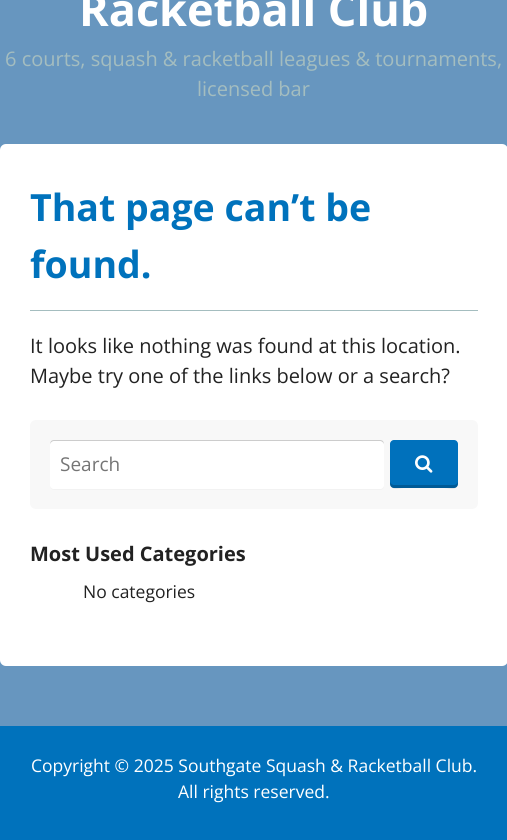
import math
import cairo

surface = cairo.ImageSurface(cairo.FORMAT_RGB24, 507, 840)
cr = cairo.Context(surface)
options = cairo.FontOptions()
options.set_hint_metrics(cairo.HINT_METRICS_OFF)
options.set_hint_style(cairo.HINT_STYLE_NONE)
cr.set_font_options(options)
cr.set_miter_limit(4)


def rgb(code):
    cr.set_source_rgb(*(v / 255 for v in bytes.fromhex(code[-6:])))


def rrect(x, y, w, h, r):
    cr.new_sub_path()
    for i, (u, v) in enumerate([(x + w - r, y + h - r), (x + r, y + h - r), (x + r, y + r), (x + w - r, y + r)]):
        cr.arc(u, v, r, i * math.pi / 2, (i + 1) * math.pi / 2)
    cr.close_path()


def image(path, x, y, w, h):
    cr.save()
    cr.set_source_surface(cairo.ImageSurface.create_from_png(path), x, y)
    cr.rectangle(x, y, w, h)
    cr.fill()
    cr.restore()


rgb("#6796bf")
cr.paint()
rgb("#ffffff")
rrect(0, 144, 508, 522, 6)
cr.fill()
rgb("#a4bdbf")
cr.rectangle(30, 310, 448, 1)
cr.fill()
rgb("#f8f8f8")
rrect(30, 420, 448, 89, 6)
cr.fill()
rgb("#f2f2f2")
cr.new_path()
cr.move_to(50, 485)
cr.line_to(50, 486)
cr.curve_to(50, 488, 52, 490, 54, 490)
cr.line_to(380, 490)
cr.curve_to(382, 490, 384, 488, 384, 486)
cr.line_to(384, 444)
cr.line_to(384, 485)
cr.curve_to(384, 487, 382, 489, 380, 489)
cr.line_to(54, 489)
cr.curve_to(52, 489, 50, 487, 50, 485)
cr.close_path()
cr.fill()
rgb("#ffffff")
rrect(50, 440, 334, 49, 4)
cr.fill()
rgb("#cccccc")
cr.new_path()
cr.move_to(54, 441)
cr.line_to(380, 441)
cr.curve_to(382, 441, 384, 443, 384, 445)
cr.curve_to(384, 442, 383, 440, 380, 440)
cr.line_to(54, 440)
cr.curve_to(51, 440, 50, 442, 50, 445)
cr.curve_to(50, 443, 52, 441, 54, 441)
cr.close_path()
cr.fill()
rgb("#0071bc")
rrect(390, 440, 68, 48, 4)
cr.fill()
cr.set_source_rgba(0, 0, 0, 0.2)
cr.new_path()
cr.move_to(390, 481)
cr.curve_to(390, 491, 395, 488, 404, 488)
cr.line_to(444, 488)
cr.curve_to(453, 488, 458, 491, 458, 481)
cr.curve_to(458, 483, 456, 485, 454, 485)
cr.line_to(394, 485)
cr.curve_to(392, 485, 390, 483, 390, 481)
cr.close_path()
cr.fill()
image("img/1.png", 415, 455, 18, 18)
rgb("#0072bc")
cr.rectangle(0, 726, 507, 114)
cr.fill()
cr.select_font_face("Open Sans", cairo.FONT_SLANT_NORMAL, cairo.FONT_WEIGHT_BOLD)
cr.set_font_size(45)
rgb("#ffffff")
cr.move_to(79, 26)
cr.show_text("Racketball Club")
cr.select_font_face("Open Sans")
cr.set_font_size(20)
rgb("#a4bdbf")
cr.move_to(5, 66)
cr.show_text("6 courts, squash & racketball leagues & tournaments,")
cr.move_to(197, 96)
cr.show_text("licensed bar")
cr.select_font_face("Open Sans", cairo.FONT_SLANT_NORMAL, cairo.FONT_WEIGHT_BOLD)
cr.set_font_size(37.5)
rgb("#0072bc")
cr.move_to(30, 221)
cr.show_text("That page can’t be")
cr.move_to(30, 278)
cr.show_text("found.")
cr.select_font_face("Open Sans")
cr.set_font_size(20)
rgb("#222222")
cr.move_to(30, 353)
cr.show_text("It looks like nothing was found at this location.")
cr.move_to(30, 383)
cr.show_text("Maybe try one of the links below or a search?")
cr.set_font_size(19)
rgb("#757575")
cr.move_to(60, 471)
cr.show_text("Search")
cr.select_font_face("Open Sans", cairo.FONT_SLANT_NORMAL, cairo.FONT_WEIGHT_BOLD)
cr.set_font_size(20)
rgb("#222222")
cr.move_to(30, 561)
cr.show_text("Most Used Categories")
cr.select_font_face("Open Sans")
cr.set_font_size(17.5)
cr.move_to(83, 598)
cr.show_text("No categories")
rgb("#ffffff")
cr.move_to(31, 772)
cr.show_text("Copyright © 2025 Southgate Squash & Racketball Club.")
cr.move_to(178, 798)
cr.show_text("All rights reserved.")
surface.write_to_png("page.png")
